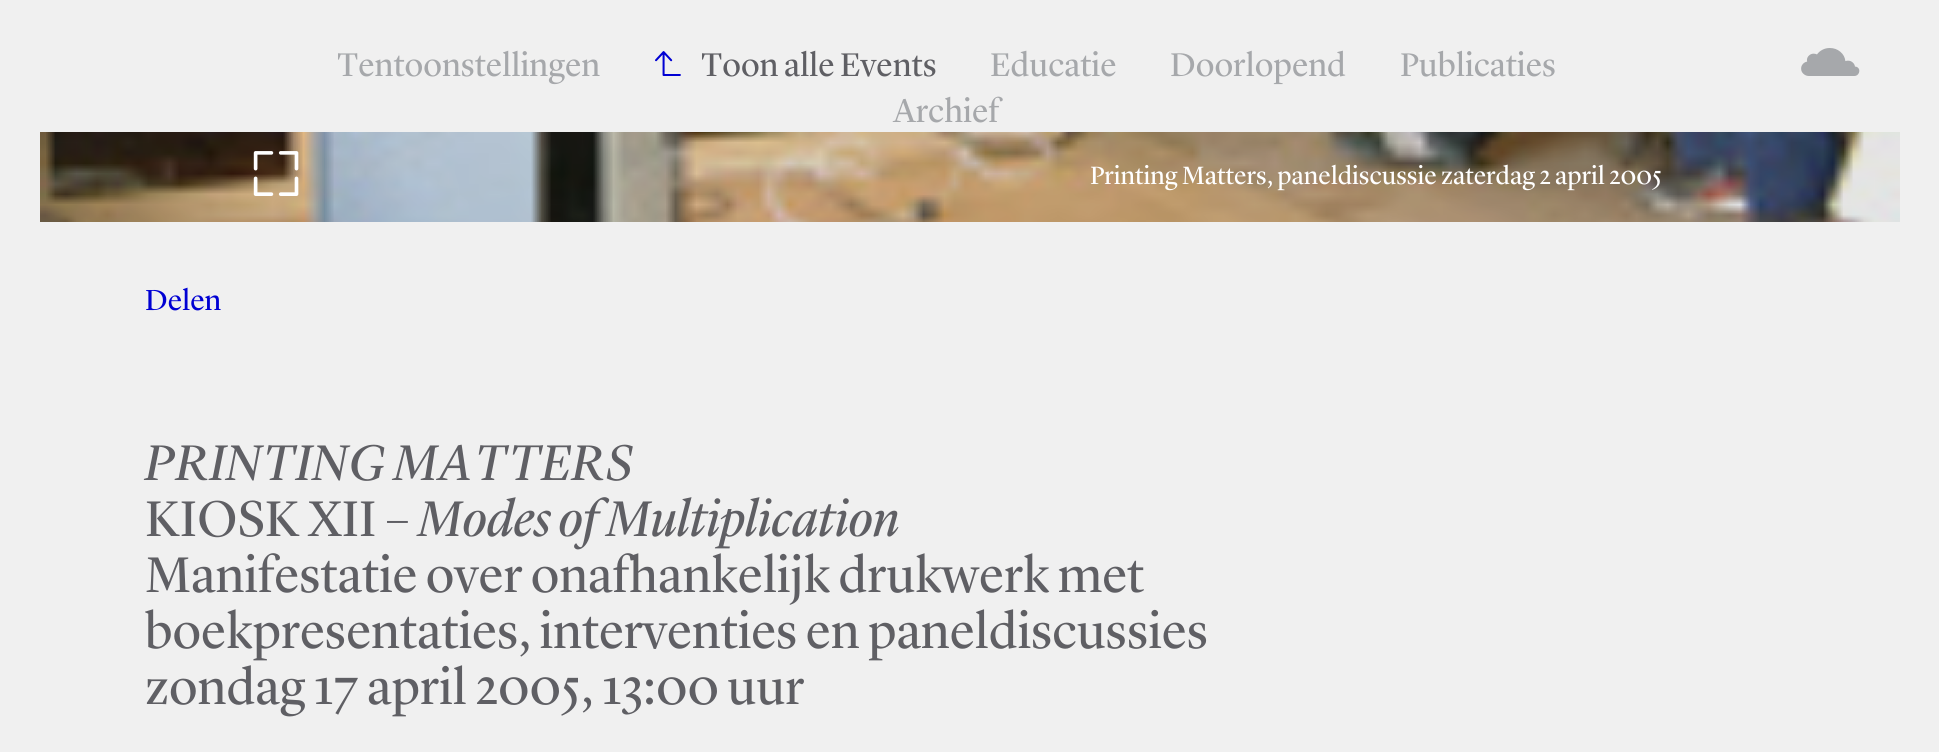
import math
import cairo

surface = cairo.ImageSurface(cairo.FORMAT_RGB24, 1939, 752)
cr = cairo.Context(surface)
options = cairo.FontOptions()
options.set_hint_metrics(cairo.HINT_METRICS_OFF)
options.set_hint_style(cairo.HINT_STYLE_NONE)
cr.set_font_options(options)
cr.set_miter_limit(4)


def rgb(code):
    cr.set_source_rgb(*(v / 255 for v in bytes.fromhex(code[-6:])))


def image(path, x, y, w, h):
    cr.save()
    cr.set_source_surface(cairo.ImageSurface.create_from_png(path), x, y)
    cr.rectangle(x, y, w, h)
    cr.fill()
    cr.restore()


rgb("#f0f0f0")
cr.paint()
image("img/1.png", 655, 51, 26, 25)
image("img/2.png", 1801, 48, 59, 28)
image("img/4.png", 40, 132, 1860, 90)
image("img/3.png", 253, 151, 46, 45)
cr.select_font_face("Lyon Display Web")
cr.set_font_size(34)
rgb("#a6a8ab")
cr.move_to(337, 76)
cr.show_text("Tentoonstellingen")
rgb("#5f5f64")
cr.move_to(701, 76)
cr.show_text("Toon alle Events")
rgb("#a6a8ab")
for x, y, s in [
    (990, 76, "Educatie"),
    (1170, 76, "Doorlopend"),
    (1400, 76, "Publicaties"),
    (893, 122, "Archief"),
]:
    cr.move_to(x, y)
    cr.show_text(s)
cr.set_font_size(26)
rgb("#ffffff")
cr.move_to(1090, 184)
cr.show_text("Printing Matters, paneldiscussie zaterdag 2 april 2005")
cr.set_font_size(30)
rgb("#0000d3")
cr.move_to(145, 310)
cr.show_text("Delen")
cr.select_font_face("Lyon Display Web", cairo.FONT_SLANT_ITALIC)
cr.set_font_size(52)
rgb("#5f5f64")
cr.move_to(145, 480)
cr.show_text("PRINTING MATTERS")
cr.select_font_face("Lyon Display Web")
cr.move_to(145, 536)
cr.show_text("KIOSK XII –")
cr.select_font_face("Lyon Display Web", cairo.FONT_SLANT_ITALIC)
cr.move_to(418, 536)
cr.show_text("Modes of Multiplication")
cr.select_font_face("Lyon Display Web")
for x, y, s in [
    (145, 592, "Manifestatie over onafhankelijk drukwerk met"),
    (145, 648, "boekpresentaties, interventies en paneldiscussies"),
    (145, 704, "zondag 17 april 2005, 13:00 uur"),
]:
    cr.move_to(x, y)
    cr.show_text(s)
surface.write_to_png("page.png")
